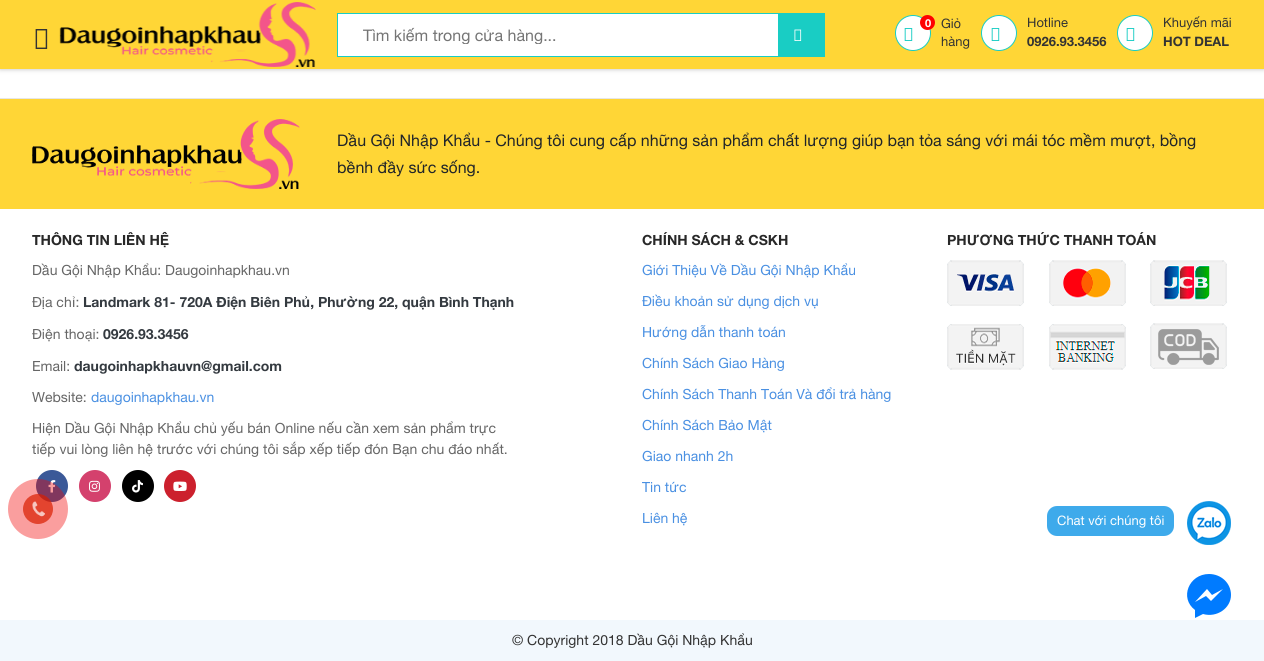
import math
import cairo

surface = cairo.ImageSurface(cairo.FORMAT_RGB24, 1264, 661)
cr = cairo.Context(surface)
options = cairo.FontOptions()
options.set_hint_metrics(cairo.HINT_METRICS_OFF)
options.set_hint_style(cairo.HINT_STYLE_NONE)
cr.set_font_options(options)
cr.set_miter_limit(4)


def rgb(code):
    cr.set_source_rgb(*(v / 255 for v in bytes.fromhex(code[-6:])))


def rrect(x, y, w, h, r):
    cr.new_sub_path()
    for i, (u, v) in enumerate([(x + w - r, y + h - r), (x + r, y + h - r), (x + r, y + r), (x + w - r, y + r)]):
        cr.arc(u, v, r, i * math.pi / 2, (i + 1) * math.pi / 2)
    cr.close_path()


def soft_shadow(x, y, w, h, r, blur, alpha):
    cr.push_group_with_content(cairo.CONTENT_ALPHA)
    cr.set_operator(cairo.OPERATOR_SOURCE)
    for i in range(15, -16, -2):
        e = blur * i / 6
        if min(w, h) + 2 * e > 0:
            cr.set_source_rgba(0, 0, 0, alpha * math.erfc((i - 1) / 8.5) / 2)
            rrect(x - e, y - e, w + 2 * e, h + 2 * e, max(0, min(r + e + blur * .6, min(w, h) / 2 + e)))
            cr.fill()
    cr.mask(cr.pop_group())


def image(path, x, y, w, h):
    cr.save()
    cr.set_source_surface(cairo.ImageSurface.create_from_png(path), x, y)
    cr.rectangle(x, y, w, h)
    cr.fill()
    cr.restore()


rgb("#ffffff")
cr.paint()
rgb("#bdbdbd")
soft_shadow(0, 0, 1264, 69, 0, 2.5, 1)
rgb("#ffd636")
cr.rectangle(0, 0, 1264, 69)
cr.fill()
image("img/1.png", 35, 29, 13, 20)
image("img/2.png", 59, 2, 257, 65)
rgb("#ffffff")
cr.rectangle(338, 14, 440, 42)
cr.fill()
cr.rectangle(337.5, 13.5, 487, 43)
rgb("#19cdc4")
cr.set_line_width(1)
cr.stroke()
cr.rectangle(778, 14, 46, 42)
cr.fill()
image("img/3.png", 794, 29, 8, 12)
rgb("#ffffff")
cr.arc(913, 33, 17.5, 0, 2 * math.pi)
cr.fill_preserve()
rgb("#19cdc4")
cr.stroke()
image("img/4.png", 904, 28, 9, 13)
rgb("#ff0000")
cr.arc(927.5, 22.5, 7.5, 0, 2 * math.pi)
cr.fill()
rgb("#ffffff")
cr.arc(999, 33, 17.5, 0, 2 * math.pi)
cr.fill_preserve()
rgb("#19cdc4")
cr.stroke()
image("img/4.png", 991, 28, 9, 13)
rgb("#ffffff")
cr.arc(1135, 33, 17.5, 0, 2 * math.pi)
cr.fill_preserve()
rgb("#19cdc4")
cr.stroke()
image("img/4.png", 1126, 28, 9, 13)
rgb("#e6e6e6")
cr.rectangle(0, 98, 1264, 1)
cr.fill()
rgb("#ffd636")
cr.rectangle(0, 99, 1264, 110)
cr.fill()
image("img/5.png", 32, 119, 268, 70)
rgb("#3b5998")
cr.arc(52, 486, 16, 0, 2 * math.pi)
cr.fill()
image("img/6.png", 48, 480, 8, 13)
rgb("#d4416d")
cr.arc(95, 486, 16, 0, 2 * math.pi)
cr.fill()
image("img/7.png", 89, 480, 11, 12)
rgb("#000000")
cr.arc(138, 486, 16, 0, 2 * math.pi)
cr.fill()
image("img/8.png", 132, 480, 11, 13)
rgb("#cc202d")
cr.arc(180, 486, 16, 0, 2 * math.pi)
cr.fill()
image("img/9.png", 173, 481, 14, 10)
image("img/10.png", 947, 260, 77, 46)
image("img/11.png", 1049, 260, 77, 46)
image("img/12.png", 1150, 260, 77, 46)
image("img/13.png", 947, 324, 77, 46)
image("img/14.png", 1049, 324, 77, 46)
image("img/15.png", 1150, 323, 77, 46)
cr.set_source_rgba(0.949, 0, 0, 0.38)
cr.arc(38, 509, 30, 0, 2 * math.pi)
cr.fill()
cr.set_source_rgba(0.851, 0.118, 0, 0.7)
cr.arc(38, 509, 15, 0, 2 * math.pi)
cr.fill()
image("img/16.png", 32, 501, 13, 16)
rgb("#3eaaeb")
rrect(1047, 506, 127, 30, 10)
cr.fill()
image("img/17.png", 1187, 501, 44, 44)
rgb("#007bff")
cr.new_path()
cr.move_to(1209, 574)
cr.curve_to(1189, 574, 1179, 598, 1195, 610)
cr.line_to(1195, 618)
cr.line_to(1203, 614)
cr.curve_to(1217, 618, 1231, 608, 1231, 595)
cr.curve_to(1231, 583, 1221, 574, 1209, 574)
cr.close_path()
cr.move_to(1211, 601)
cr.line_to(1206, 596)
cr.line_to(1195, 602)
cr.line_to(1207, 589)
cr.line_to(1212, 595)
cr.line_to(1223, 589)
cr.close_path()
cr.fill()
rgb("#f2f8fd")
cr.rectangle(0, 620, 1264, 41)
cr.fill()
cr.save()
cr.rectangle(363, 26, 367, 18)
cr.clip()
cr.select_font_face("Helvetica Neue")
cr.set_font_size(16)
rgb("#757575")
cr.move_to(363, 41)
cr.show_text("Tìm kiếm trong cửa hàng...")
cr.restore()
cr.select_font_face("Helvetica Neue", cairo.FONT_SLANT_NORMAL, cairo.FONT_WEIGHT_BOLD)
cr.set_font_size(11)
rgb("#ffffff")
cr.move_to(925, 27)
cr.show_text("0")
cr.select_font_face("Helvetica Neue")
cr.set_font_size(13)
rgb("#333333")
for x, y, s in [
    (941, 28, "Giỏ"),
    (941, 46, "hàng"),
    (1027, 27, "Hotline"),
]:
    cr.move_to(x, y)
    cr.show_text(s)
cr.select_font_face("Helvetica Neue", cairo.FONT_SLANT_NORMAL, cairo.FONT_WEIGHT_BOLD)
cr.move_to(1027, 46)
cr.show_text("0926.93.3456")
cr.select_font_face("Helvetica Neue")
cr.move_to(1163, 27)
cr.show_text("Khuyến mãi")
cr.select_font_face("Helvetica Neue", cairo.FONT_SLANT_NORMAL, cairo.FONT_WEIGHT_BOLD)
cr.move_to(1163, 46)
cr.show_text("HOT DEAL")
cr.select_font_face("Helvetica Neue")
cr.set_font_size(16)
rgb("#212529")
cr.move_to(337, 146)
cr.show_text("Dầu Gội Nhập Khẩu - Chúng tôi cung cấp những sản phẩm chất lượng giúp bạn tỏa sáng với mái tóc mềm mượt, bồng")
cr.move_to(337, 173)
cr.show_text("bềnh đầy sức sống.")
cr.select_font_face("Helvetica Neue", cairo.FONT_SLANT_NORMAL, cairo.FONT_WEIGHT_BOLD)
cr.set_font_size(14)
rgb("#282828")
cr.move_to(32, 245)
cr.show_text("THÔNG TIN LIÊN HỆ")
cr.select_font_face("Helvetica Neue")
rgb("#666666")
cr.move_to(32, 275)
cr.show_text("Dầu Gội Nhập Khẩu: Daugoinhapkhau.vn")
cr.move_to(32, 307)
cr.show_text("Địa chỉ:")
cr.select_font_face("Helvetica Neue", cairo.FONT_SLANT_NORMAL, cairo.FONT_WEIGHT_BOLD)
rgb("#343a40")
cr.move_to(83, 307)
cr.show_text("Landmark 81- 720A Điện Biên Phủ, Phường 22, quận Bình Thạnh")
cr.select_font_face("Helvetica Neue")
rgb("#666666")
cr.move_to(32, 339)
cr.show_text("Điện thoại:")
cr.select_font_face("Helvetica Neue", cairo.FONT_SLANT_NORMAL, cairo.FONT_WEIGHT_BOLD)
rgb("#343a40")
cr.move_to(103, 339)
cr.show_text("0926.93.3456")
cr.select_font_face("Helvetica Neue")
rgb("#666666")
cr.move_to(32, 371)
cr.show_text("Email:")
cr.select_font_face("Helvetica Neue", cairo.FONT_SLANT_NORMAL, cairo.FONT_WEIGHT_BOLD)
rgb("#343a40")
cr.move_to(74, 371)
cr.show_text("daugoinhapkhauvn@gmail.com")
cr.select_font_face("Helvetica Neue")
rgb("#666666")
cr.move_to(32, 402)
cr.show_text("Website:")
rgb("#4a90e2")
cr.move_to(91, 402)
cr.show_text("daugoinhapkhau.vn")
rgb("#666666")
cr.move_to(32, 433)
cr.show_text("Hiện Dầu Gội Nhập Khẩu chủ yếu bán Online nếu cần xem sản phẩm trực")
cr.move_to(32, 454)
cr.show_text("tiếp vui lòng liên hệ trước với chúng tôi sắp xếp tiếp đón Bạn chu đáo nhất.")
cr.select_font_face("Helvetica Neue", cairo.FONT_SLANT_NORMAL, cairo.FONT_WEIGHT_BOLD)
rgb("#282828")
cr.move_to(642, 245)
cr.show_text("CHÍNH SÁCH & CSKH")
cr.select_font_face("Helvetica Neue")
rgb("#4a90e2")
for x, y, s in [
    (642, 275, "Giới Thiệu Về Dầu Gội Nhập Khẩu"),
    (642, 306, "Điều khoản sử dụng dịch vụ"),
    (642, 337, "Hướng dẫn thanh toán"),
    (642, 368, "Chính Sách Giao Hàng"),
    (642, 399, "Chính Sách Thanh Toán Và đổi trả hàng"),
    (642, 430, "Chính Sách Bảo Mật"),
    (642, 461, "Giao nhanh 2h"),
    (642, 492, "Tin tức"),
    (642, 523, "Liên hệ"),
]:
    cr.move_to(x, y)
    cr.show_text(s)
cr.select_font_face("Helvetica Neue", cairo.FONT_SLANT_NORMAL, cairo.FONT_WEIGHT_BOLD)
rgb("#282828")
cr.move_to(947, 245)
cr.show_text("PHƯƠNG THỨC THANH TOÁN")
cr.select_font_face("Helvetica Neue")
cr.set_font_size(13)
rgb("#ffffff")
cr.move_to(1057, 525)
cr.show_text("Chat với chúng tôi")
cr.set_font_size(14)
rgb("#333333")
cr.move_to(512, 645)
cr.show_text("© Copyright 2018 Dầu Gội Nhập Khẩu")
surface.write_to_png("page.png")
